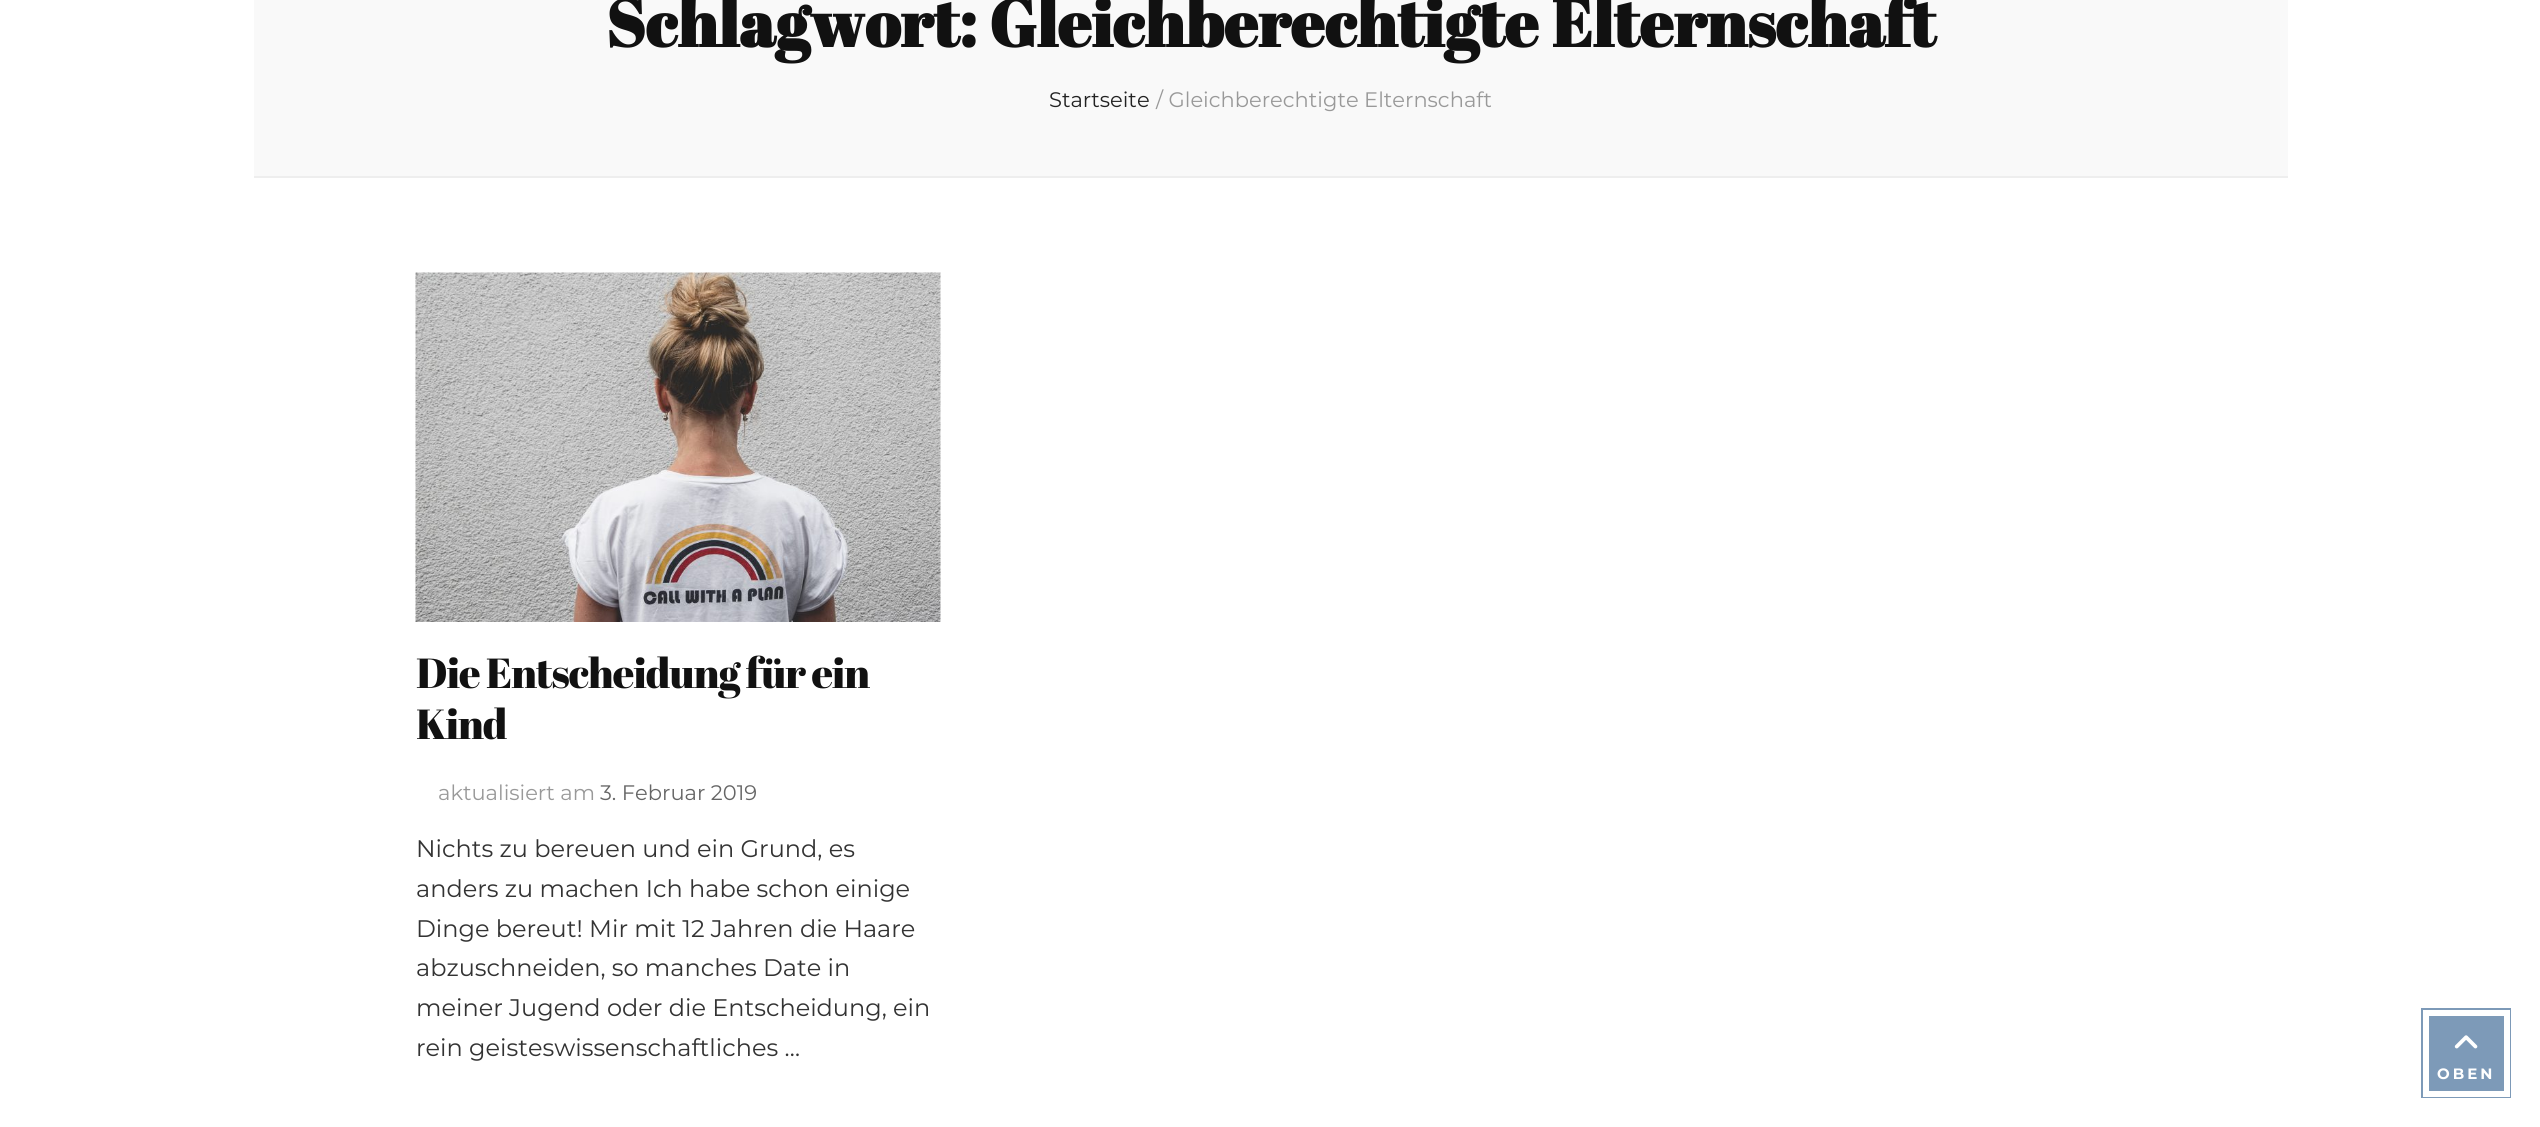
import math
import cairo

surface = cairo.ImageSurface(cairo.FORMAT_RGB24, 2540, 1127)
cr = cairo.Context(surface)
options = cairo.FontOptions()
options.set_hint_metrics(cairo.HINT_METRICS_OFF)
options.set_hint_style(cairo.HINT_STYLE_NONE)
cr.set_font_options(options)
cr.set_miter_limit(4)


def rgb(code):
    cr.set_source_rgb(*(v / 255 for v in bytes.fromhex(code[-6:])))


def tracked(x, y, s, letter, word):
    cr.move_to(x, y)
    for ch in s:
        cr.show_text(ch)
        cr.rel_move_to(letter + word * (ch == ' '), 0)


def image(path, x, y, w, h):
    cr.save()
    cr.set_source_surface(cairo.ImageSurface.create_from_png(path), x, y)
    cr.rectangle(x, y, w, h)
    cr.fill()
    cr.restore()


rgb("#ffffff")
cr.paint()
rgb("#f9f9f9")
cr.rectangle(254, 0, 2034, 176)
cr.fill()
rgb("#eeeeee")
cr.rectangle(254, 176, 2034, 2)
cr.fill()
image("img/1.png", 415, 272, 526, 350)
rgb("#7d9ab8")
cr.rectangle(2421, 1008, 90, 90)
cr.fill()
image("img/2.png", 2454, 1035, 24, 14)
cr.rectangle(2426, 1013, 81, 81)
rgb("#ffffff")
cr.set_line_width(6)
cr.stroke()
cr.select_font_face("Abril Fatface", cairo.FONT_SLANT_NORMAL, cairo.FONT_WEIGHT_BOLD)
cr.set_font_size(66)
rgb("#111111")
cr.move_to(606, 47)
cr.show_text("Schlagwort:")
tracked(989, 47, "Gleichberechtigte Elternschaft", 0, 1)
cr.select_font_face("Montserrat")
cr.set_font_size(21)
rgb("#222222")
cr.move_to(1049, 107)
cr.show_text("Startseite")
rgb("#999999")
cr.move_to(1156, 107)
cr.show_text("/ Gleichberechtigte Elternschaft")
cr.select_font_face("Abril Fatface")
cr.set_font_size(42)
rgb("#111111")
tracked(416, 688, "Die Entscheidung für ein", -1.05, 0)
tracked(416, 739, "Kind", -1.05, 0)
cr.select_font_face("Montserrat")
cr.set_font_size(21)
rgb("#999999")
cr.move_to(438, 800)
cr.show_text("aktualisiert am")
rgb("#666666")
cr.move_to(600, 800)
cr.show_text("3. Februar 2019")
cr.set_font_size(24)
rgb("#333333")
for x, y, s in [
    (416, 857, "Nichts zu bereuen und ein Grund, es"),
    (416, 897, "anders zu machen Ich habe schon einige"),
    (416, 937, "Dinge bereut! Mir mit 12 Jahren die Haare"),
    (416, 976, "abzuschneiden, so manches Date in"),
    (416, 1016, "meiner Jugend oder die Entscheidung, ein"),
    (416, 1056, "rein geisteswissenschaftliches …"),
]:
    cr.move_to(x, y)
    cr.show_text(s)
cr.select_font_face("Montserrat", cairo.FONT_SLANT_NORMAL, cairo.FONT_WEIGHT_BOLD)
cr.set_font_size(15)
rgb("#ffffff")
tracked(2437, 1079, "OBEN", 3, 0)
surface.write_to_png("page.png")
